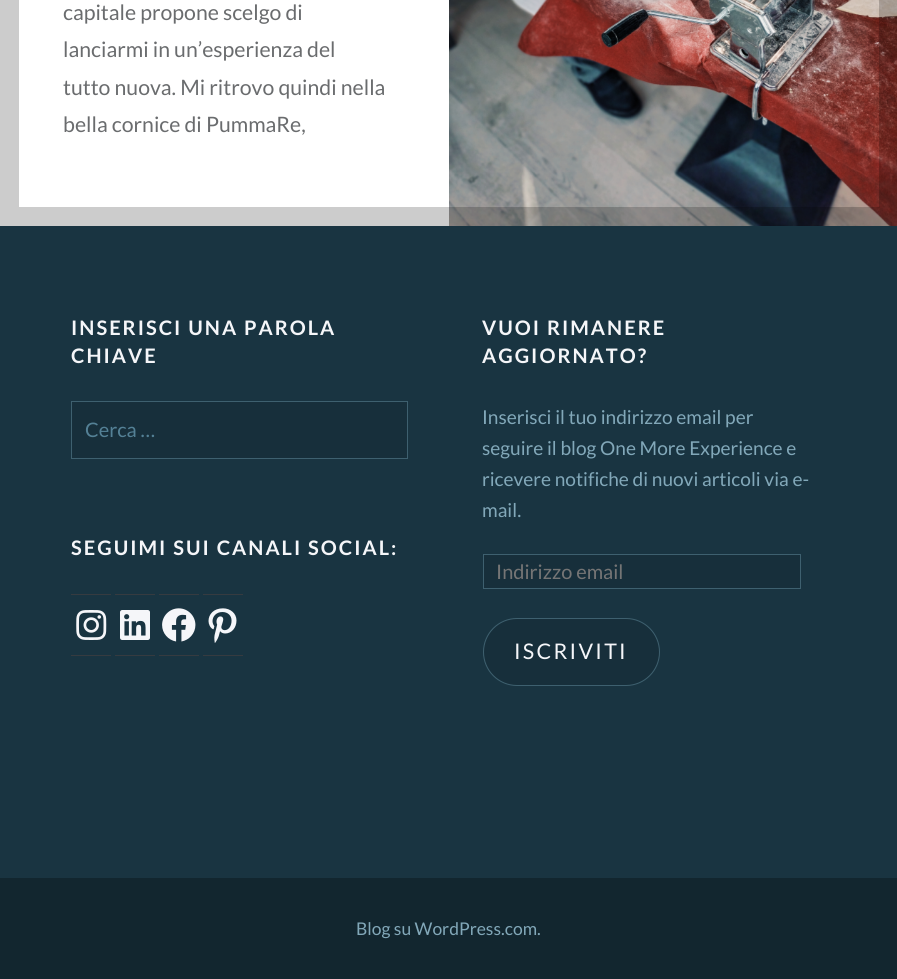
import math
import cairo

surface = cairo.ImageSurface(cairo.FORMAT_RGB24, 897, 979)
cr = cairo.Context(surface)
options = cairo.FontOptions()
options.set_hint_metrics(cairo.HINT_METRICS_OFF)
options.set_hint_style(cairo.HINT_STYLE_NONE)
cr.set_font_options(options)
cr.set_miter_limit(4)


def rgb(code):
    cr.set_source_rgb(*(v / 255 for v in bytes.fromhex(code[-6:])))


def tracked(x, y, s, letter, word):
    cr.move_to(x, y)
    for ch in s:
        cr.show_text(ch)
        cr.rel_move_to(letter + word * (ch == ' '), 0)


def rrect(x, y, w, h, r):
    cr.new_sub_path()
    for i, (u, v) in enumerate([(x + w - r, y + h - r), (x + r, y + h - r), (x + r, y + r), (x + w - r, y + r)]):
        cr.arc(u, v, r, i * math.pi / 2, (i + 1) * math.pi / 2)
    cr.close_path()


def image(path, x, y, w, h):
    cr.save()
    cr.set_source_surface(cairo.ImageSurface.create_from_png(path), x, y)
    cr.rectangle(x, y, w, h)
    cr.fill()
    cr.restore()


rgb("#ffffff")
cr.paint()
image("img/1.png", 449, 0, 448, 226)
cr.rectangle(9.5, -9.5, 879, 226)
cr.set_source_rgba(0, 0, 0, 0.2)
cr.set_line_width(19)
cr.stroke()
rgb("#193441")
cr.rectangle(0, 226, 897, 652)
cr.fill()
rgb("#172f3b")
cr.rectangle(71.5, 401.5, 336, 57)
cr.fill_preserve()
rgb("#3e606f")
cr.set_line_width(1)
cr.stroke()
rgb("#172f3b")
cr.rectangle(483.5, 554.5, 317, 34)
cr.fill_preserve()
rgb("#3e606f")
cr.stroke()
rgb("#172f3b")
rrect(483.5, 618.5, 176, 67, 33.5)
cr.fill_preserve()
rgb("#3e606f")
cr.stroke()
rgb("#363b40")
cr.rectangle(71, 594, 40, 1)
cr.fill()
cr.rectangle(71, 655, 40, 1)
cr.fill()
image("img/2.png", 76, 610, 31, 30)
cr.rectangle(115, 594, 40, 1)
cr.fill()
cr.rectangle(115, 655, 40, 1)
cr.fill()
image("img/3.png", 120, 610, 30, 30)
cr.rectangle(159, 594, 40, 1)
cr.fill()
cr.rectangle(159, 655, 40, 1)
cr.fill()
image("img/4.png", 162, 608, 34, 34)
cr.rectangle(203, 594, 40, 1)
cr.fill()
cr.rectangle(203, 655, 40, 1)
cr.fill()
image("img/5.png", 208, 608, 29, 35)
rgb("#12262f")
cr.rectangle(0, 878, 897, 101)
cr.fill()
cr.select_font_face("Lato")
cr.set_font_size(21.25)
rgb("#6a6c6e")
for x, y, s in [
    (63, 20, "capitale propone scelgo di"),
    (63, 57, "lanciarmi in un’esperienza del"),
    (63, 95, "tutto nuova. Mi ritrovo quindi nella"),
    (63, 132, "bella cornice di PummaRe,"),
]:
    cr.move_to(x, y)
    cr.show_text(s)
cr.select_font_face("Lato", cairo.FONT_SLANT_NORMAL, cairo.FONT_WEIGHT_BOLD)
cr.set_font_size(20)
rgb("#f5f6f9")
tracked(71, 335, "INSERISCI UNA PAROLA", 2, 0)
tracked(71, 363, "CHIAVE", 2, 0)
cr.select_font_face("Lato")
rgb("#548196")
cr.move_to(85, 437)
cr.show_text("Cerca …")
cr.select_font_face("Lato", cairo.FONT_SLANT_NORMAL, cairo.FONT_WEIGHT_BOLD)
rgb("#f5f6f9")
tracked(482, 335, "VUOI RIMANERE", 2, 0)
tracked(482, 363, "AGGIORNATO?", 2, 0)
cr.select_font_face("Lato")
cr.set_font_size(19.1)
rgb("#82a8b9")
for x, y, s in [
    (482, 424, "Inserisci il tuo indirizzo email per"),
    (482, 455, "seguire il blog One More Experience e"),
    (482, 486, "ricevere notifiche di nuovi articoli via e-"),
    (482, 517, "mail."),
]:
    cr.move_to(x, y)
    cr.show_text(s)
cr.set_font_size(20)
rgb("#757575")
cr.move_to(496, 579)
cr.show_text("Indirizzo email")
cr.set_font_size(21.5)
rgb("#f5f6f9")
tracked(514, 659, "ISCRIVITI", 2.25, 0)
cr.select_font_face("Lato", cairo.FONT_SLANT_NORMAL, cairo.FONT_WEIGHT_BOLD)
cr.set_font_size(20)
tracked(71, 555, "SEGUIMI SUI CANALI SOCIAL:", 2, 0)
cr.select_font_face("Lato")
cr.set_font_size(17.5)
rgb("#82a8b9")
cr.move_to(356, 935)
cr.show_text("Blog su WordPress.com.")
surface.write_to_png("page.png")
